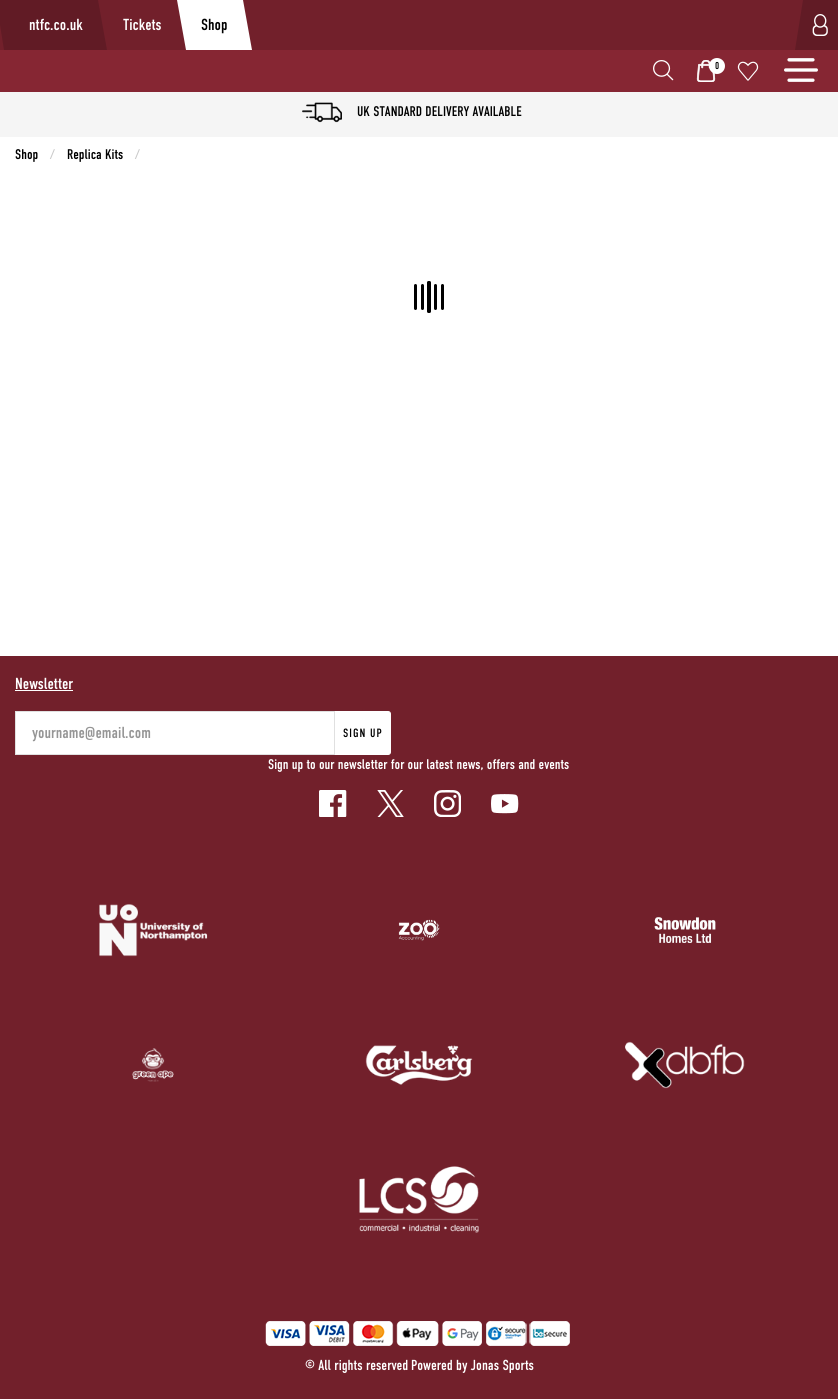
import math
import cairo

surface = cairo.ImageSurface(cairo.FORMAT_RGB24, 838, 1399)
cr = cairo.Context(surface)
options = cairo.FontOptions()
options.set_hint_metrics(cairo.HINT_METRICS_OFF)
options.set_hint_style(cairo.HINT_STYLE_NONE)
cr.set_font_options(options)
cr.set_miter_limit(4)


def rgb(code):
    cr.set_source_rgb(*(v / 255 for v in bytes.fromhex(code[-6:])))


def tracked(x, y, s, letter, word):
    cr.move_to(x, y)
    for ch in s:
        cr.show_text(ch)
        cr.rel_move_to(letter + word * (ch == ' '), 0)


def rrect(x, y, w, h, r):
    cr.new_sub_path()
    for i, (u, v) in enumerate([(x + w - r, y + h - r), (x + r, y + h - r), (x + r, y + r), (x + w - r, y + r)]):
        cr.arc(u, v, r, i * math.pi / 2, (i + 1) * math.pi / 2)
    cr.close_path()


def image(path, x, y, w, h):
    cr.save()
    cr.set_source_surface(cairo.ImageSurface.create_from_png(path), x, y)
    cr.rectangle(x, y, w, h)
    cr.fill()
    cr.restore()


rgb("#ffffff")
cr.paint()
rgb("#72202b")
cr.rectangle(0, 0, 803, 50)
cr.fill()
rgb("#611b25")
cr.new_path()
cr.move_to(-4, 0)
cr.line_to(98, 0)
cr.line_to(107, 50)
cr.line_to(4, 50)
cr.close_path()
cr.fill()
rgb("#ffffff")
cr.new_path()
cr.move_to(177, 0)
cr.line_to(243, 0)
cr.line_to(252, 50)
cr.line_to(186, 50)
cr.close_path()
cr.fill()
rgb("#611b25")
cr.new_path()
cr.move_to(803, 0)
cr.line_to(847, 0)
cr.line_to(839, 50)
cr.line_to(795, 50)
cr.close_path()
cr.fill()
image("img/1.png", 812, 14, 16, 22)
rgb("#862633")
cr.rectangle(0, 50, 838, 42)
cr.fill()
image("img/2.png", 653, 60, 21, 21)
image("img/3.png", 696, 60, 20, 22)
rgb("#ffffff")
cr.arc(717, 66, 8, 0, 2 * math.pi)
cr.fill()
image("img/4.png", 737, 61, 22, 20)
image("img/5.png", 784, 58, 34, 24)
rgb("#f5f5f5")
cr.rectangle(0, 92, 838, 45)
cr.fill()
image("img/6.png", 302, 102, 40, 21)
rgb("#000000")
rrect(414, 284, 3, 26, 1.5)
cr.fill()
rrect(421, 284, 3, 26, 1.5)
cr.fill()
rrect(427, 281, 4, 32, 1.5)
cr.fill()
rrect(434, 284, 3, 26, 1.5)
cr.fill()
rrect(441, 284, 3, 26, 1.5)
cr.fill()
rgb("#72202b")
cr.rectangle(0, 656, 838, 743)
cr.fill()
rgb("#ffffff")
cr.rectangle(15, 690, 58, 1)
cr.fill()
cr.rectangle(15.5, 711.5, 319, 43)
cr.fill_preserve()
rgb("#e0e0e0")
cr.set_line_width(1)
cr.stroke()
rgb("#ffffff")
cr.new_path()
cr.move_to(335.5, 711.5)
cr.line_to(388, 711.5)
cr.curve_to(389.5, 711.5, 390.5, 712.5, 390.5, 714)
cr.line_to(390.5, 752)
cr.curve_to(390.5, 753.5, 389.5, 754.5, 388, 754.5)
cr.line_to(335.5, 754.5)
cr.close_path()
cr.fill_preserve()
cr.stroke()
image("img/7.png", 319, 790, 28, 27)
image("img/8.png", 377, 790, 27, 27)
image("img/9.png", 434, 790, 27, 27)
image("img/10.png", 491, 794, 28, 20)
image("img/11.png", 99, 904, 109, 53)
image("img/12.png", 398, 919, 42, 22)
image("img/13.png", 654, 917, 62, 26)
image("img/14.png", 132, 1048, 42, 34)
image("img/15.png", 365, 1045, 108, 40)
image("img/16.png", 625, 1041, 120, 48)
image("img/17.png", 359, 1166, 120, 67)
image("img/18.png", 265, 1321, 217, 25)
image("img/19.png", 486, 1321, 41, 25)
image("img/20.png", 529, 1321, 41, 25)
cr.select_font_face("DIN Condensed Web")
cr.set_font_size(16)
cr.move_to(29, 30)
cr.show_text("ntfc.co.uk")
cr.move_to(123, 30)
cr.show_text("Tickets")
rgb("#000000")
cr.move_to(201, 30)
cr.show_text("Shop")
cr.set_font_size(10)
cr.move_to(715, 69)
cr.show_text("0")
cr.set_font_size(14)
cr.move_to(357, 116)
cr.show_text("UK STANDARD DELIVERY AVAILABLE")
cr.move_to(15, 159)
cr.show_text("Shop")
rgb("#cacaca")
cr.move_to(50, 159)
cr.show_text("/")
rgb("#000000")
cr.move_to(67, 159)
cr.show_text("Replica Kits")
rgb("#cacaca")
cr.move_to(135, 159)
cr.show_text("/")
cr.set_font_size(16)
rgb("#ffffff")
cr.move_to(15, 689)
cr.show_text("Newsletter")
rgb("#959595")
cr.move_to(32, 738)
cr.show_text("yourname@email.com")
cr.set_font_size(12)
rgb("#000000")
tracked(343, 737, "SIGN UP", 1, 0)
cr.set_font_size(14)
rgb("#ffffff")
cr.move_to(268, 769)
cr.show_text("Sign up to our newsletter for our latest news, offers and events")
cr.set_font_size(14.5)
cr.move_to(305, 1370)
cr.show_text("© All rights reserved")
cr.move_to(411, 1370)
cr.show_text("Powered by Jonas Sports")
surface.write_to_png("page.png")
